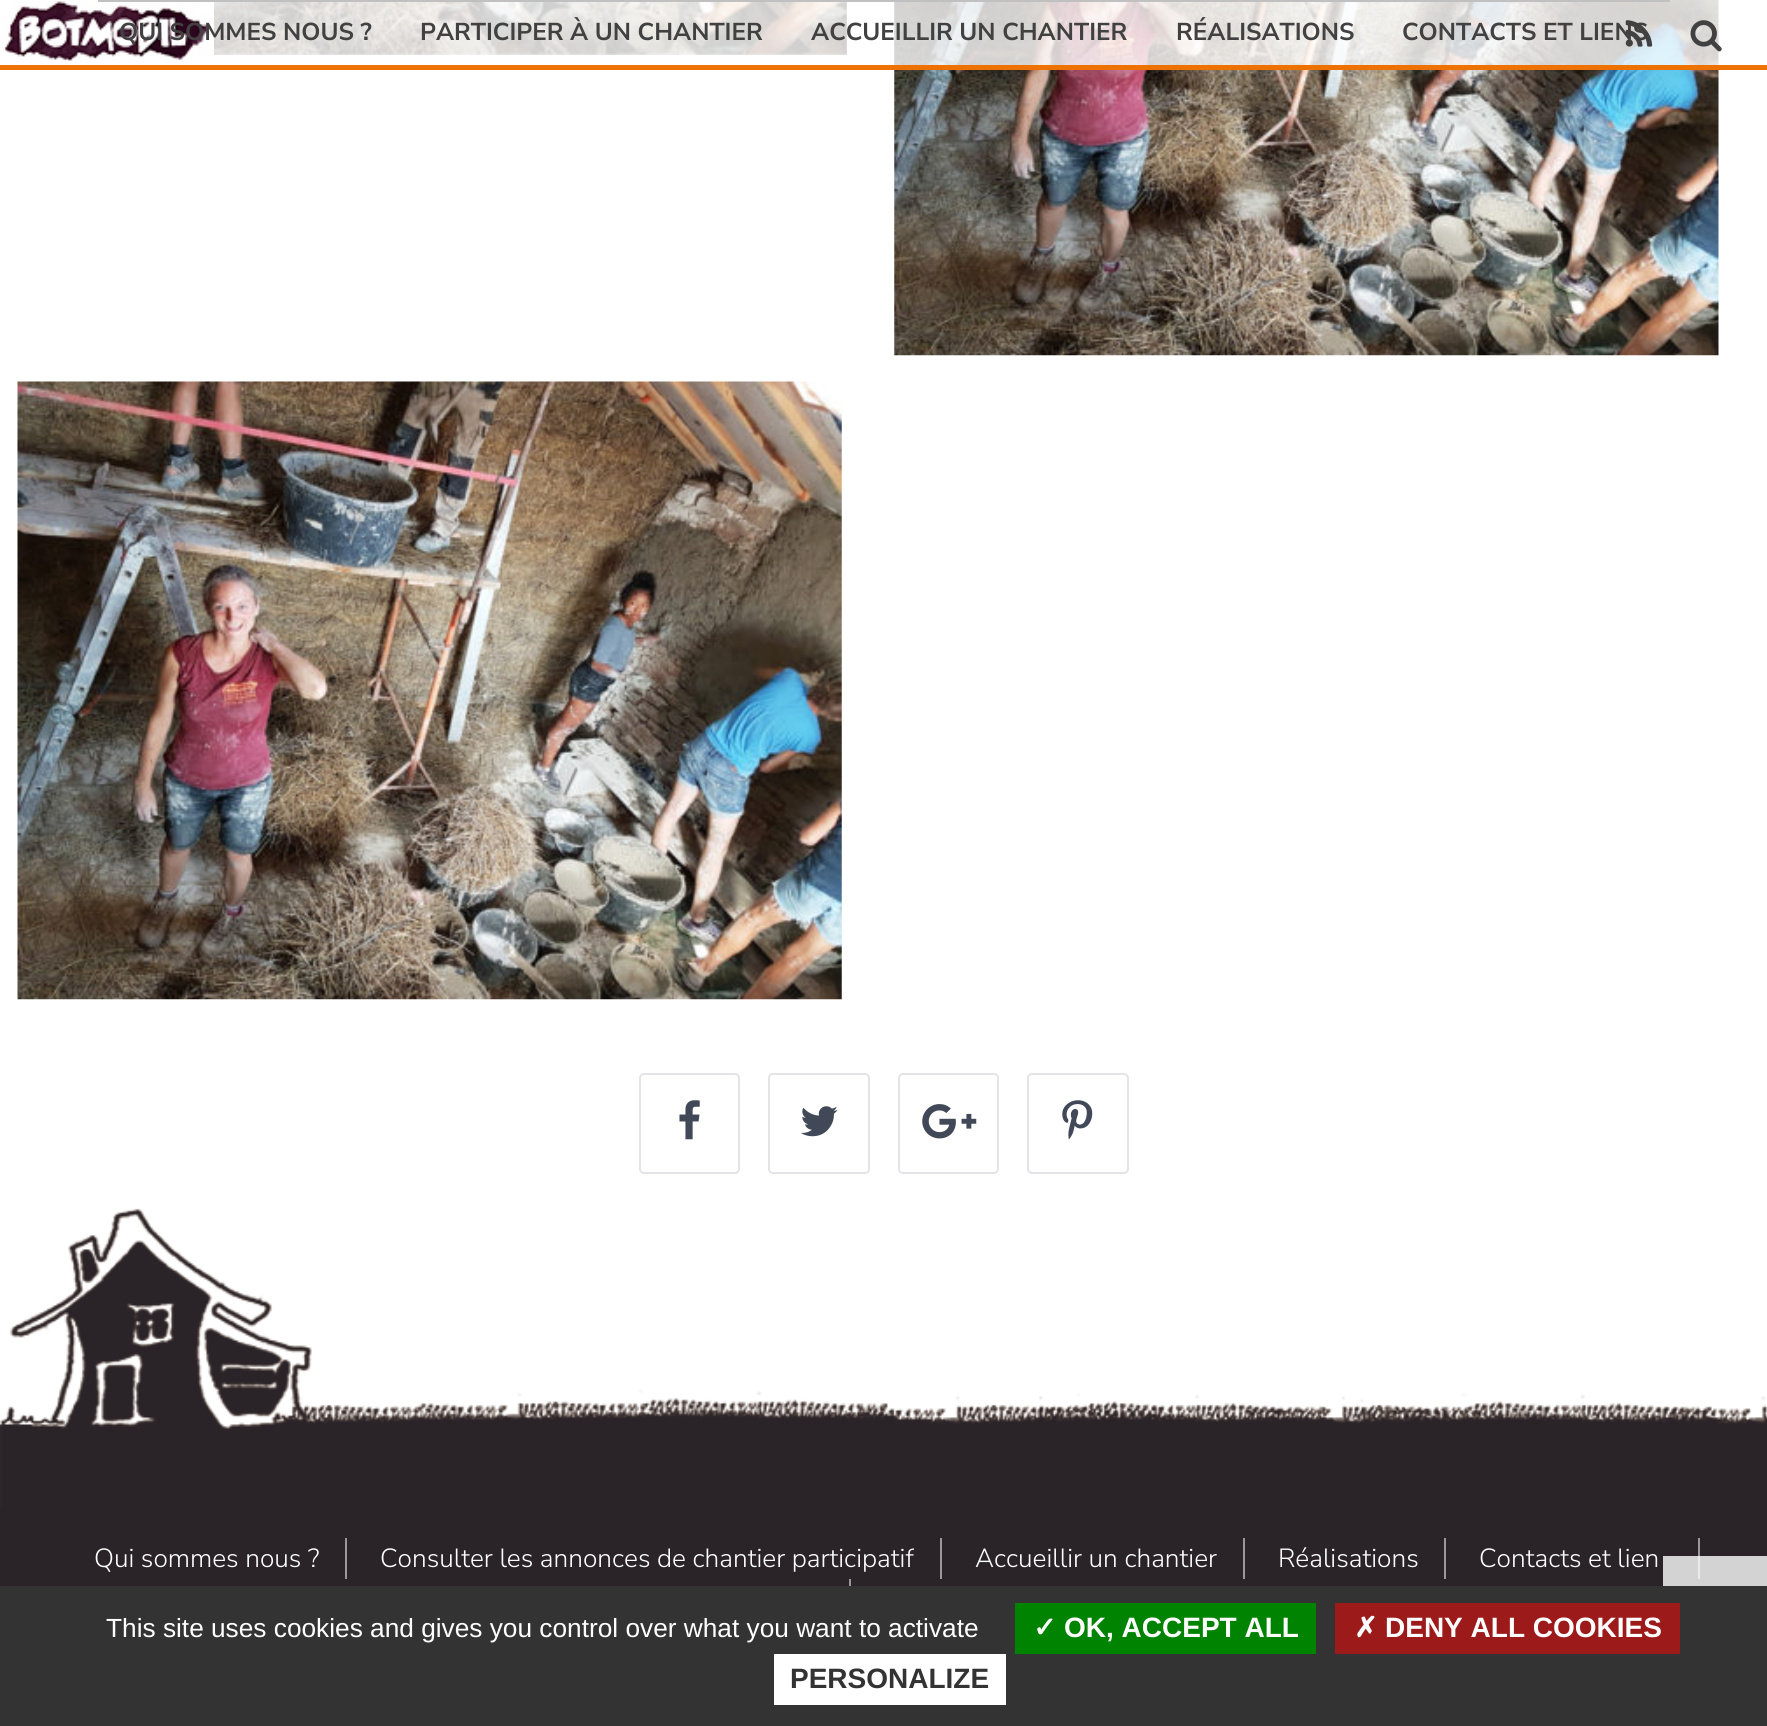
import math
import cairo

surface = cairo.ImageSurface(cairo.FORMAT_RGB24, 1767, 1726)
cr = cairo.Context(surface)
options = cairo.FontOptions()
options.set_hint_metrics(cairo.HINT_METRICS_OFF)
options.set_hint_style(cairo.HINT_STYLE_NONE)
cr.set_font_options(options)
cr.set_miter_limit(4)


def rgb(code):
    cr.set_source_rgb(*(v / 255 for v in bytes.fromhex(code[-6:])))


def rrect(x, y, w, h, r):
    cr.new_sub_path()
    for i, (u, v) in enumerate([(x + w - r, y + h - r), (x + r, y + h - r), (x + r, y + r), (x + w - r, y + r)]):
        cr.arc(u, v, r, i * math.pi / 2, (i + 1) * math.pi / 2)
    cr.close_path()


def image(path, x, y, w, h):
    cr.save()
    cr.set_source_surface(cairo.ImageSurface.create_from_png(path), x, y)
    cr.rectangle(x, y, w, h)
    cr.fill()
    cr.restore()


rgb("#ffffff")
cr.paint()
image("img/1.png", 214, 2, 633, 53)
image("img/2.png", 894, 0, 825, 356)
image("img/3.png", 17, 381, 825, 619)
rrect(640, 1074, 99, 99, 4)
rgb("#e4e3e7")
cr.stroke()
image("img/4.png", 679, 1100, 21, 40)
rrect(769, 1074, 100, 99, 4)
cr.stroke()
image("img/5.png", 801, 1106, 37, 31)
rrect(899, 1074, 99, 99, 4)
cr.stroke()
image("img/6.png", 922, 1104, 55, 35)
rrect(1028, 1074, 100, 99, 4)
cr.stroke()
image("img/7.png", 1062, 1100, 31, 40)
cr.set_source_rgba(1, 1, 1, 0.8)
cr.rectangle(214, 0, 1505, 65)
cr.fill()
rgb("#ee7202")
cr.rectangle(0, 65, 1767, 5)
cr.fill()
image("img/8.png", 2, 0, 212, 61)
rgb("#c0c0c0")
cr.rectangle(98, 0, 1572, 2)
cr.fill()
image("img/9.png", 1625, 20, 28, 27)
image("img/10.png", 1690, 20, 32, 32)
image("img/11.png", 0, 1208, 1767, 299)
rgb("#2a2429")
cr.rectangle(0, 1507, 1767, 79)
cr.fill()
rgb("#999999")
cr.rectangle(345, 1538, 2, 41)
cr.rectangle(940, 1538, 2, 41)
cr.rectangle(1243, 1538, 2, 41)
cr.rectangle(1444, 1538, 2, 41)
cr.rectangle(1698, 1538, 2, 41)
cr.rectangle(849, 1579, 2, 7)
cr.fill()
cr.set_source_rgba(1, 1, 1, 0.8)
cr.rectangle(1663, 1556, 104, 30)
cr.fill()
rgb("#333333")
cr.rectangle(0, 1586, 1767, 140)
cr.fill()
rgb("#008300")
cr.rectangle(1015, 1603, 301, 51)
cr.fill()
rgb("#9c1a1a")
cr.rectangle(1335, 1603, 345, 51)
cr.fill()
rgb("#ffffff")
cr.rectangle(774, 1654, 232, 51)
cr.fill()
cr.select_font_face("Nunito Sans", cairo.FONT_SLANT_NORMAL, cairo.FONT_WEIGHT_BOLD)
cr.set_font_size(24.4)
rgb("#414141")
for x, y, s in [
    (119, 40, "QUI SOMMES NOUS ?"),
    (420, 40, "PARTICIPER À UN CHANTIER"),
    (811, 40, "ACCUEILLIR UN CHANTIER"),
    (1176, 40, "RÉALISATIONS"),
    (1402, 40, "CONTACTS ET LIENS"),
]:
    cr.move_to(x, y)
    cr.show_text(s)
cr.select_font_face("Nunito Sans Light")
cr.set_font_size(26.25)
rgb("#ffffff")
for x, y, s in [
    (94, 1567, "Qui sommes nous ?"),
    (380, 1567, "Consulter les annonces de chantier participatif"),
    (975, 1567, "Accueillir un chantier"),
    (1278, 1567, "Réalisations"),
    (1479, 1567, "Contacts et lien"),
]:
    cr.move_to(x, y)
    cr.show_text(s)
cr.select_font_face("Liberation Sans")
cr.move_to(106, 1637)
cr.show_text("This site uses cookies and gives you control over what you want to activate")
cr.select_font_face("DejaVu Sans", cairo.FONT_SLANT_NORMAL, cairo.FONT_WEIGHT_BOLD)
cr.set_font_size(28)
cr.move_to(1033, 1637)
cr.show_text("✓")
cr.select_font_face("Liberation Sans", cairo.FONT_SLANT_NORMAL, cairo.FONT_WEIGHT_BOLD)
cr.move_to(1064, 1637)
cr.show_text("OK, ACCEPT ALL")
cr.select_font_face("DejaVu Sans", cairo.FONT_SLANT_NORMAL, cairo.FONT_WEIGHT_BOLD)
cr.move_to(1354, 1637)
cr.show_text("✗")
cr.select_font_face("Liberation Sans", cairo.FONT_SLANT_NORMAL, cairo.FONT_WEIGHT_BOLD)
cr.move_to(1385, 1637)
cr.show_text("DENY ALL COOKIES")
rgb("#333333")
cr.move_to(790, 1688)
cr.show_text("PERSONALIZE")
surface.write_to_png("page.png")
